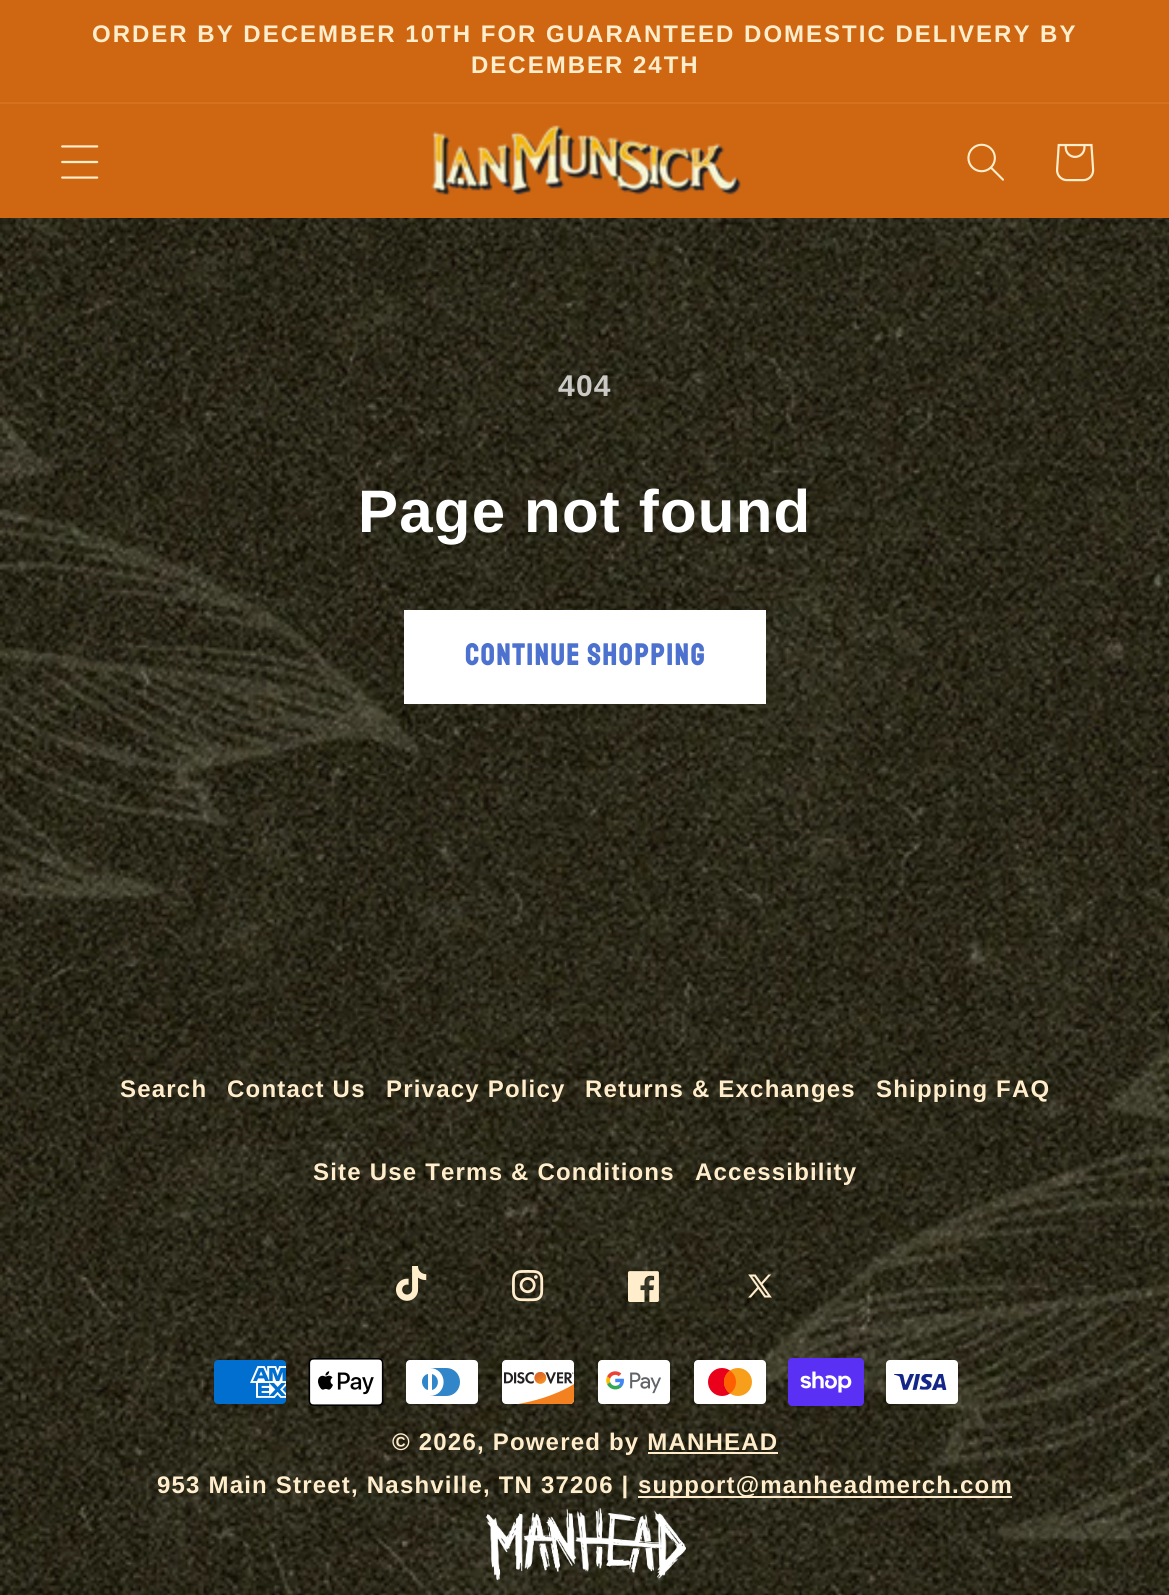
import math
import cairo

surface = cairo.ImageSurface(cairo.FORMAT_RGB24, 1169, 1595)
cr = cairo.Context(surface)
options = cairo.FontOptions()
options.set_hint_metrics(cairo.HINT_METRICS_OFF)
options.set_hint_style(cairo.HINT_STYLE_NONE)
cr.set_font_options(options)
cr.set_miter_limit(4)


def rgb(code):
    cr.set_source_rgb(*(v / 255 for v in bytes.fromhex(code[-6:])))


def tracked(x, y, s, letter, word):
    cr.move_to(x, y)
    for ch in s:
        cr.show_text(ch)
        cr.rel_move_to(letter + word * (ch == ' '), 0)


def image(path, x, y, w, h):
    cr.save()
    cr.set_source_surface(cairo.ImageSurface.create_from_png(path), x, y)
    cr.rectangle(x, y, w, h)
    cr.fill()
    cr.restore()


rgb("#ffffff")
cr.paint()
for x, y, w, h, color in [
    (0, 0, 1169, 102, "#cf6712"),
    (0, 102, 1169, 2, "#d37221"),
    (0, 104, 1169, 114, "#cf6712"),
]:
    rgb(color)
    cr.rectangle(x, y, w, h)
    cr.fill()
image("img/1.png", 61, 145, 38, 34)
image("img/2.png", 431, 125, 310, 71)
image("img/3.png", 967, 143, 37, 38)
image("img/4.png", 1056, 143, 39, 39)
image("img/5.png", 0, 218, 1169, 1377)
rgb("#ffffff")
cr.rectangle(404, 610, 362, 94)
cr.fill()
image("img/6.png", 396, 1266, 31, 35)
image("img/7.png", 512, 1270, 32, 32)
image("img/8.png", 628, 1271, 31, 31)
image("img/9.png", 748, 1274, 24, 24)
image("img/10.png", 213, 1358, 75, 48)
image("img/11.png", 308, 1358, 76, 48)
image("img/12.png", 406, 1358, 74, 48)
image("img/13.png", 500, 1358, 76, 48)
image("img/14.png", 596, 1358, 76, 48)
image("img/15.png", 694, 1358, 74, 48)
image("img/16.png", 788, 1358, 76, 48)
image("img/17.png", 884, 1358, 76, 48)
rgb("#ffedcb")
cr.rectangle(648, 1452, 130, 2)
cr.fill()
cr.rectangle(638, 1496, 374, 2)
cr.fill()
image("img/18.png", 485, 1508, 201, 73)
cr.select_font_face("Liberation Sans", cairo.FONT_SLANT_NORMAL, cairo.FONT_WEIGHT_BOLD)
cr.set_font_size(24)
tracked(92, 42, "ORDER BY DECEMBER 10TH FOR GUARANTEED DOMESTIC DELIVERY BY", 2, 0)
tracked(471, 73, "DECEMBER 24TH", 2, 0)
cr.set_font_size(30)
rgb("#cac9c5")
tracked(558, 396, "404", 1.2, 0)
cr.set_font_size(60)
rgb("#ffffff")
tracked(358, 532, "Page not found", 1.2, 0)
cr.select_font_face("Staatliches", cairo.FONT_SLANT_NORMAL, cairo.FONT_WEIGHT_BOLD)
cr.set_font_size(30)
rgb("#4c71ce")
tracked(465, 665, "Continue shopping", 2, 0)
cr.select_font_face("Liberation Sans", cairo.FONT_SLANT_NORMAL, cairo.FONT_WEIGHT_BOLD)
cr.set_font_size(24)
rgb("#ffedcb")
for x, y, s in [
    (120, 1097, "Search"),
    (227, 1097, "Contact Us"),
    (386, 1097, "Privacy Policy"),
    (585, 1097, "Returns & Exchanges"),
    (876, 1097, "Shipping FAQ"),
    (313, 1180, "Site Use Terms & Conditions"),
    (695, 1180, "Accessibility"),
    (392, 1450, "© 2026, Powered by MANHEAD"),
    (157, 1493, "953 Main Street, Nashville, TN 37206 |"),
    (638, 1493, "support@manheadmerch.com"),
]:
    tracked(x, y, s, 1.2, 0)
surface.write_to_png("page.png")
